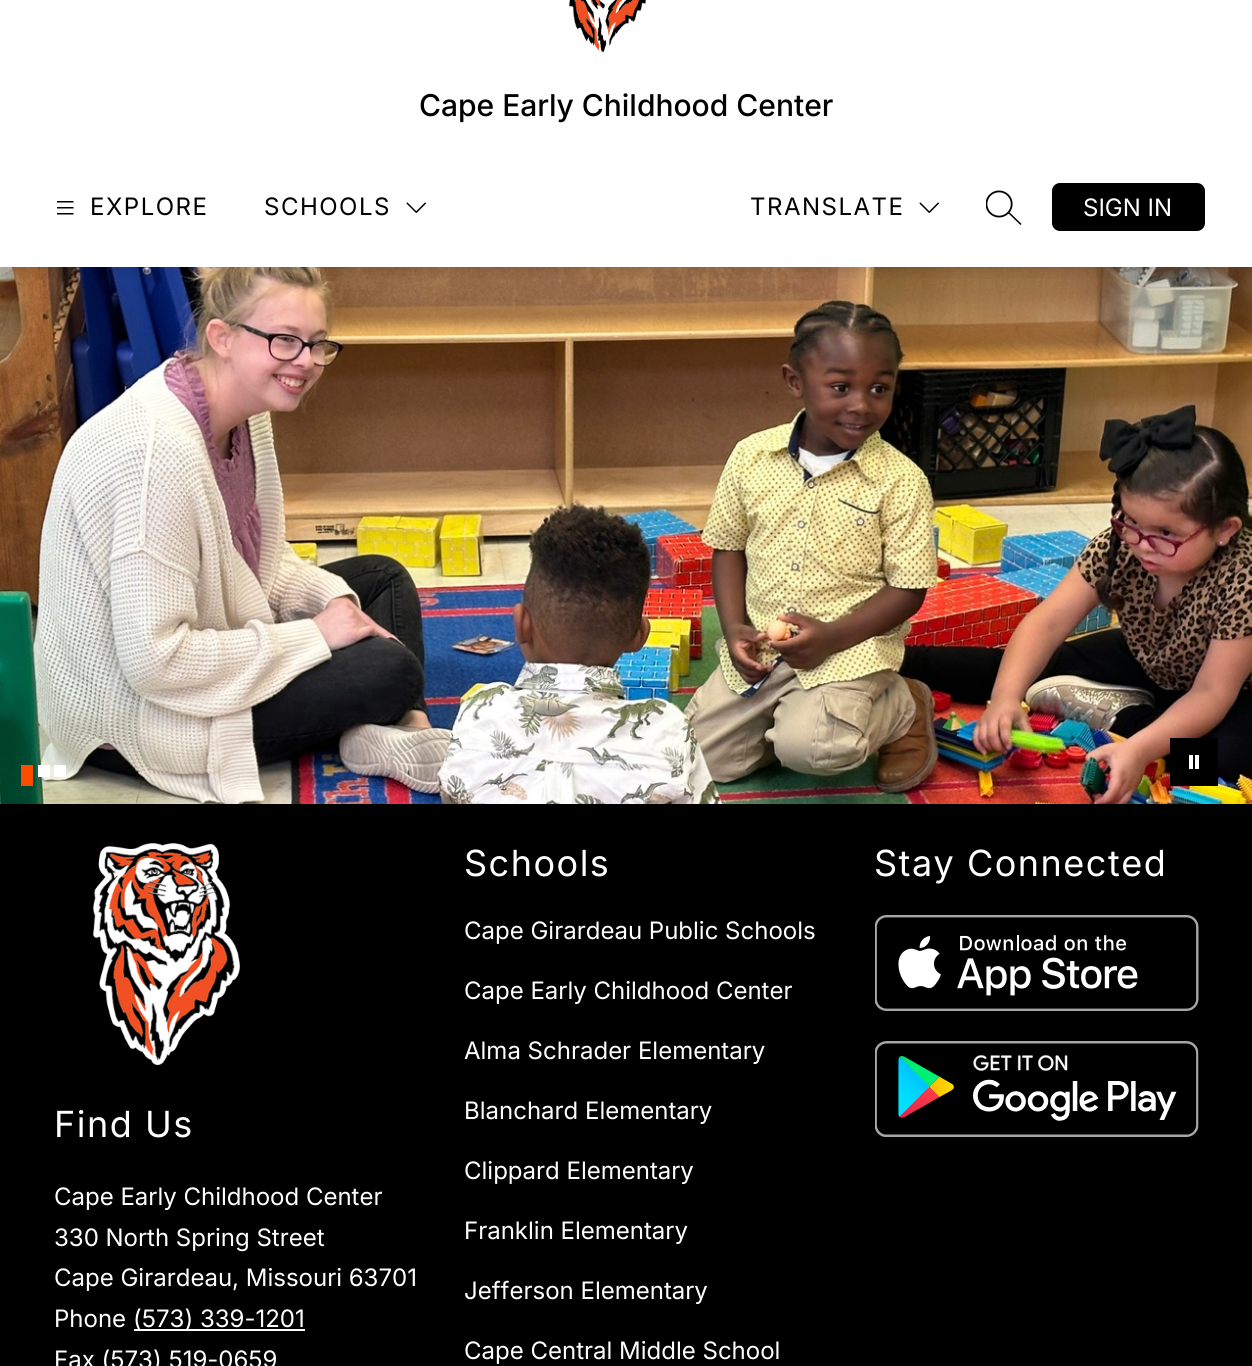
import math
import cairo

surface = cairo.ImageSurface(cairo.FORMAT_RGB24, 1252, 1366)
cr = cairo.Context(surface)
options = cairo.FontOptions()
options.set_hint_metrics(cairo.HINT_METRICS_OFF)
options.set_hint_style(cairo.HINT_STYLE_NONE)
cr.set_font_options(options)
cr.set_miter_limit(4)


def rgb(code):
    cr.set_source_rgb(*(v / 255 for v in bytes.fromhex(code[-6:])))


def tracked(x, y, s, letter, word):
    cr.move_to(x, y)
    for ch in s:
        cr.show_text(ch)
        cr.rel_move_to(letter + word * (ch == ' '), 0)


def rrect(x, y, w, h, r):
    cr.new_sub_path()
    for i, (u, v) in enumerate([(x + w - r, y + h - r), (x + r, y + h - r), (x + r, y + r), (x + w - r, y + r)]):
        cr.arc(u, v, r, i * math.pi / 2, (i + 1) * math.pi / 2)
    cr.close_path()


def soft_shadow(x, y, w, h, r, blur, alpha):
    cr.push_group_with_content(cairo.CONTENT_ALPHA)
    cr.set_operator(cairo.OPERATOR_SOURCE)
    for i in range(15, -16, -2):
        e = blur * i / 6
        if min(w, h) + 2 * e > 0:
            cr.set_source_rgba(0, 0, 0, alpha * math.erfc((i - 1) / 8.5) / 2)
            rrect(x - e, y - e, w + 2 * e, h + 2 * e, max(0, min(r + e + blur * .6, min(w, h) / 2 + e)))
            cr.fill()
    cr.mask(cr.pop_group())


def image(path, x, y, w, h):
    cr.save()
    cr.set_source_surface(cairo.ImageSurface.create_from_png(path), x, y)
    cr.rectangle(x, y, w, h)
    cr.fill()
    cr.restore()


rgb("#ffffff")
cr.paint()
image("img/5.png", 0, 267, 1252, 537)
cr.save()
cr.rectangle(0, 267, 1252, 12)
cr.clip()
rgb("#000000")
soft_shadow(0, -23, 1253, 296, 0, 7.5, 0.1)
cr.restore()
image("img/1.png", 568, 0, 81, 53)
image("img/2.png", 57, 201, 17, 14)
image("img/3.png", 406, 202, 20, 11)
image("img/3.png", 919, 202, 20, 11)
image("img/4.png", 986, 190, 36, 35)
rgb("#000000")
rrect(1053, 184, 151, 46, 7)
cr.fill_preserve()
cr.stroke()
for x, y, w, h, color in [
    (21, 765, 12, 21, "#fc4c02"),
    (38, 765, 12, 12, "#ffffff"),
    (54, 765, 12, 12, "#ffffff"),
    (1170, 738, 48, 48, "#000000"),
]:
    rgb(color)
    cr.rectangle(x, y, w, h)
    cr.fill()
rgb("#ffffff")
cr.set_fill_rule(cairo.FILL_RULE_EVEN_ODD)
cr.new_path()
cr.move_to(1193, 755)
cr.line_to(1189, 755)
cr.line_to(1189, 769)
cr.line_to(1193, 769)
cr.close_path()
cr.move_to(1199, 755)
cr.line_to(1195, 755)
cr.line_to(1195, 769)
cr.line_to(1199, 769)
cr.close_path()
cr.fill()
rgb("#000000")
cr.rectangle(0, 804, 1252, 562)
cr.fill()
image("img/6.png", 875, 915, 324, 96)
image("img/7.png", 875, 1041, 324, 96)
image("img/8.png", 93, 843, 147, 222)
rgb("#ffffff")
cr.rectangle(134, 1329, 171, 2)
cr.fill()
cr.select_font_face("Inter Medium")
cr.set_font_size(30)
rgb("#000000")
cr.move_to(419, 116)
cr.show_text("Cape Early Childhood Center")
cr.select_font_face("Inter")
cr.set_font_size(24)
for x, y, s in [
    (90, 215, "EXPLORE"),
    (264, 215, "SCHOOLS"),
    (750, 215, "TRANSLATE"),
]:
    tracked(x, y, s, 1.5, 0)
rgb("#ffffff")
cr.move_to(1083, 216)
cr.show_text("SIGN IN")
cr.set_font_size(36)
tracked(464, 876, "Schools", 1.5, 0)
cr.set_font_size(24)
for x, y, s in [
    (464, 939, "Cape Girardeau Public Schools"),
    (464, 999, "Cape Early Childhood Center"),
    (464, 1059, "Alma Schrader Elementary"),
    (464, 1119, "Blanchard Elementary"),
    (464, 1179, "Clippard Elementary"),
    (464, 1239, "Franklin Elementary"),
    (464, 1299, "Jefferson Elementary"),
    (464, 1359, "Cape Central Middle School"),
]:
    cr.move_to(x, y)
    cr.show_text(s)
cr.set_font_size(36)
tracked(874, 876, "Stay Connected", 1.5, 0)
tracked(54, 1137, "Find Us", 1.5, 0)
cr.set_font_size(24)
for x, y, s in [
    (54, 1205, "Cape Early Childhood Center"),
    (54, 1246, "330 North Spring Street"),
    (54, 1286, "Cape Girardeau, Missouri 63701"),
    (54, 1327, "Phone"),
    (133, 1327, "(573) 339-1201"),
    (54, 1368, "Fax (573) 519-0659"),
]:
    cr.move_to(x, y)
    cr.show_text(s)
surface.write_to_png("page.png")
